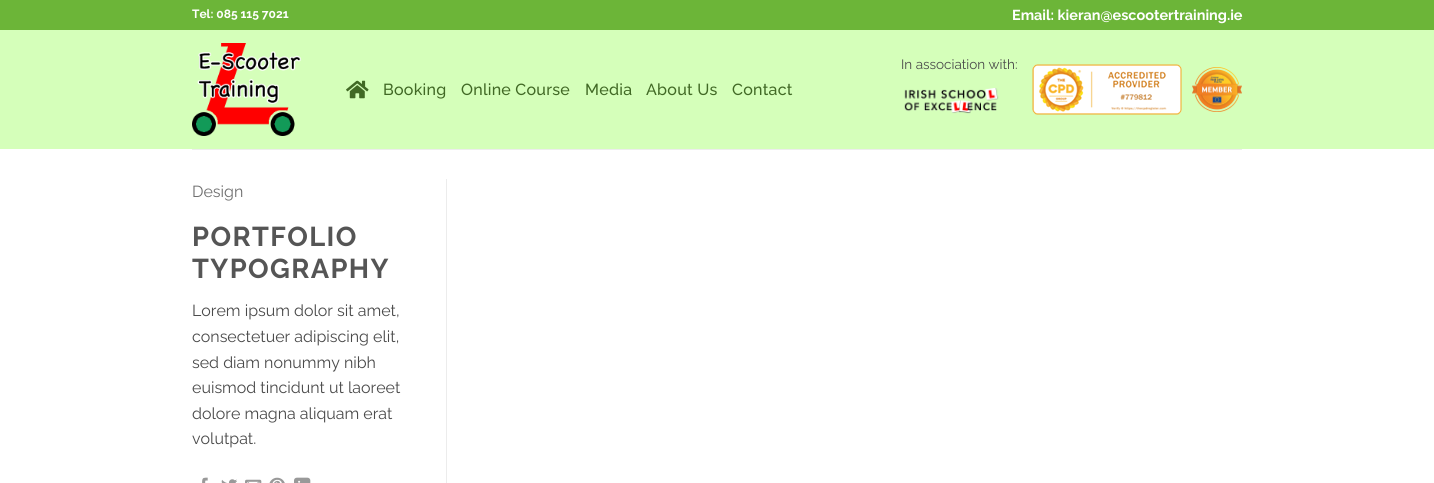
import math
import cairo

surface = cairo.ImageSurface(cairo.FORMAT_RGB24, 1434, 483)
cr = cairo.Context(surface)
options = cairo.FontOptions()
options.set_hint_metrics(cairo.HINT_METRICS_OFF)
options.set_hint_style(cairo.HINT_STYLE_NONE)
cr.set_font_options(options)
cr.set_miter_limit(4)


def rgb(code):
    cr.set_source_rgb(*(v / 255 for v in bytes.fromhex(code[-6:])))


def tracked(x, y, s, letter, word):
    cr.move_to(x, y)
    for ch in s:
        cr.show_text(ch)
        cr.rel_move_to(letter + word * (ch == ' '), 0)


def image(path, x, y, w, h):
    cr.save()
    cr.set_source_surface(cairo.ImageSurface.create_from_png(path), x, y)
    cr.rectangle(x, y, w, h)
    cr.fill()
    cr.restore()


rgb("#ffffff")
cr.paint()
rgb("#6cb538")
cr.rectangle(0, 0, 1434, 30)
cr.fill()
rgb("#d5ffba")
cr.rectangle(0, 30, 1434, 119)
cr.fill()
image("img/1.png", 192, 43, 109, 93)
image("img/2.png", 904, 88, 95, 26)
image("img/3.png", 1032, 64, 150, 51)
image("img/4.png", 1192, 67, 50, 45)
image("img/5.png", 346, 80, 23, 19)
rgb("#ededed")
cr.rectangle(192, 149, 1050, 1)
cr.fill()
rgb("#ececec")
cr.rectangle(446, 179, 1, 304)
cr.fill()
image("img/6.png", 202, 477, 6, 6)
image("img/7.png", 221, 479, 16, 4)
image("img/8.png", 245, 479, 17, 4)
image("img/9.png", 269, 477, 16, 6)
image("img/10.png", 294, 477, 17, 6)
cr.select_font_face("Raleway", cairo.FONT_SLANT_NORMAL, cairo.FONT_WEIGHT_BOLD)
cr.set_font_size(12)
rgb("#ffffff")
cr.move_to(192, 18)
cr.show_text("Tel: 085 115 7021")
cr.set_font_size(14.4)
cr.move_to(1012, 20)
cr.show_text("Email: kieran@escootertraining.ie")
cr.select_font_face("Raleway")
cr.set_font_size(13.5)
rgb("#4a4a4a")
cr.move_to(901, 69)
cr.show_text("In association with:")
cr.select_font_face("Raleway Medium")
cr.set_font_size(16)
rgb("#416925")
for x, y, s in [
    (383, 95, "Booking"),
    (461, 95, "Online Course"),
    (585, 95, "Media"),
    (646, 95, "About Us"),
    (732, 95, "Contact"),
]:
    tracked(x, y, s, 0.25, 0)
cr.select_font_face("Raleway")
rgb("#6e6e6e")
cr.move_to(192, 197)
cr.show_text("Design")
cr.select_font_face("Raleway", cairo.FONT_SLANT_NORMAL, cairo.FONT_WEIGHT_BOLD)
cr.set_font_size(27.25)
rgb("#555555")
tracked(192, 246, "PORTFOLIO", 1.4, 0)
tracked(192, 278, "TYPOGRAPHY", 1.4, 0)
cr.select_font_face("Raleway")
cr.set_font_size(16)
rgb("#4a4a4a")
for x, y, s in [
    (192, 316, "Lorem ipsum dolor sit amet,"),
    (192, 342, "consectetuer adipiscing elit,"),
    (192, 368, "sed diam nonummy nibh"),
    (192, 393, "euismod tincidunt ut laoreet"),
    (192, 419, "dolore magna aliquam erat"),
    (192, 444, "volutpat."),
]:
    cr.move_to(x, y)
    cr.show_text(s)
surface.write_to_png("page.png")
